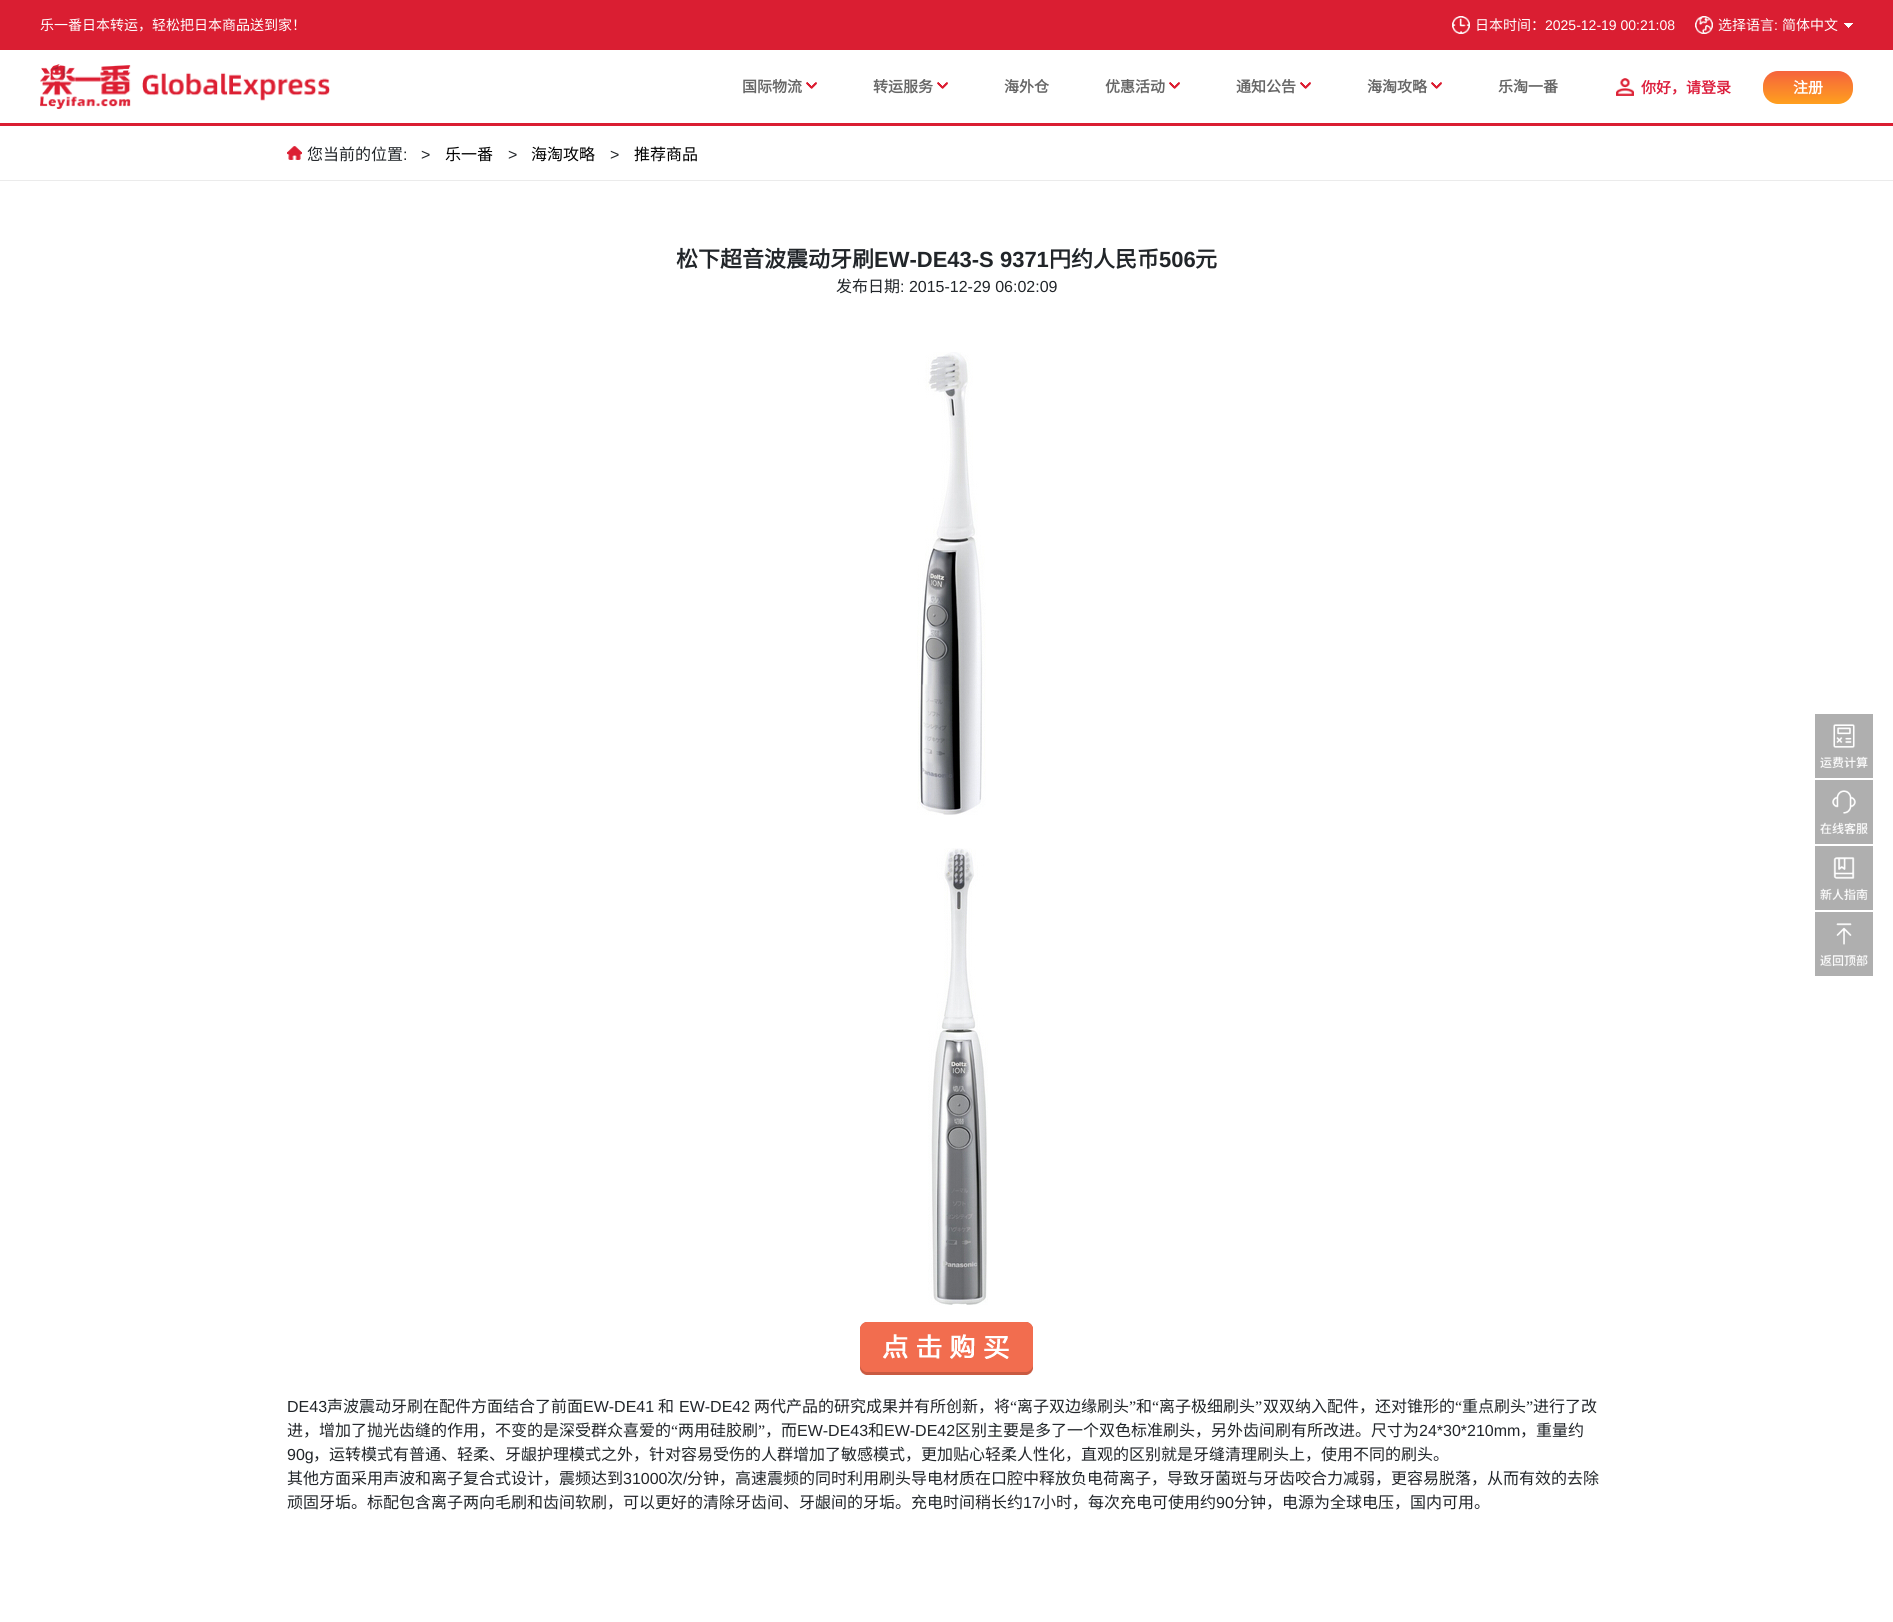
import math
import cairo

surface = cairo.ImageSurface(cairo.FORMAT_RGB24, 1893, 1622)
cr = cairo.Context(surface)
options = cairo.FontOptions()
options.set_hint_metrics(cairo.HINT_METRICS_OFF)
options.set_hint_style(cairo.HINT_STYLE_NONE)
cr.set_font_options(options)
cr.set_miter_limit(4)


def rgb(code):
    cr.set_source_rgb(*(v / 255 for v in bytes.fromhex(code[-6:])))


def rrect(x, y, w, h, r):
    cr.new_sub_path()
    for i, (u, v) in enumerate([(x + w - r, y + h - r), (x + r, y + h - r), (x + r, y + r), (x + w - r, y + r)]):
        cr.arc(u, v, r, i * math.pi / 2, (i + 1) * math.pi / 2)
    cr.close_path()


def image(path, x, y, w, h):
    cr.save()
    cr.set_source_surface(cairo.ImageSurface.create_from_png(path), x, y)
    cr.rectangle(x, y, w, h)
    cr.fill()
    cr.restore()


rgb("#ffffff")
cr.paint()
rgb("#da1e32")
cr.rectangle(0, 0, 1893, 50)
cr.fill()
image("img/1.png", 1452, 16, 18, 18)
image("img/2.png", 1844, 23, 9, 5)
image("img/3.png", 1695, 16, 18, 18)
image("img/4.png", 40, 64, 290, 45)
image("img/5.png", 806, 82, 11, 7)
image("img/5.png", 937, 82, 11, 7)
image("img/5.png", 1169, 82, 11, 7)
image("img/5.png", 1300, 82, 11, 7)
image("img/5.png", 1431, 82, 11, 7)
image("img/6.png", 1616, 78, 18, 18)
gradient = cairo.LinearGradient(1808, 71, 1808, 104)
gradient.add_color_stop_rgba(0, 0.961, 0.388, 0.239, 1)
gradient.add_color_stop_rgba(1, 1, 0.627, 0.118, 1)
cr.set_source(gradient)
rrect(1763, 71, 90, 33, 15)
cr.fill()
rgb("#da1e32")
cr.rectangle(0, 123, 1893, 3)
cr.fill()
rgb("#ebebeb")
cr.rectangle(0, 180, 1893, 1)
cr.fill()
image("img/7.png", 287, 146, 15, 14)
image("img/8.png", 917, 352, 69, 463)
image("img/9.png", 928, 848, 60, 457)
image("img/10.png", 860, 1322, 173, 53)
image("img/11.png", 1815, 714, 58, 64)
image("img/12.png", 1815, 780, 58, 64)
image("img/13.png", 1815, 846, 58, 64)
image("img/14.png", 1815, 912, 58, 64)
cr.select_font_face("Noto Sans CJK SC")
cr.set_font_size(14)
rgb("#ffffff")
cr.move_to(40, 30)
cr.show_text("乐一番日本转运，轻松把日本商品送到家！")
cr.move_to(1475, 30)
cr.show_text("日本时间：")
cr.select_font_face("Liberation Sans")
cr.move_to(1545, 30)
cr.show_text("2025-12-19 00:21:08")
cr.select_font_face("Noto Sans CJK SC")
cr.move_to(1718, 30)
cr.show_text("选择语言")
cr.select_font_face("Liberation Sans")
cr.move_to(1774, 30)
cr.show_text(":")
cr.select_font_face("Noto Sans CJK SC")
cr.move_to(1782, 30)
cr.show_text("简体中文")
cr.select_font_face("Noto Sans CJK SC", cairo.FONT_SLANT_NORMAL, cairo.FONT_WEIGHT_BOLD)
cr.set_font_size(15)
rgb("#666666")
for x, y, s in [
    (742, 92, "国际物流"),
    (873, 92, "转运服务"),
    (1004, 92, "海外仓"),
    (1105, 92, "优惠活动"),
    (1236, 92, "通知公告"),
    (1367, 92, "海淘攻略"),
    (1498, 92, "乐淘一番"),
]:
    cr.move_to(x, y)
    cr.show_text(s)
rgb("#dc1e3c")
cr.move_to(1641, 93)
cr.show_text("你好，请登录")
rgb("#ffffff")
cr.move_to(1793, 93)
cr.show_text("注册")
cr.select_font_face("Noto Sans CJK SC")
cr.set_font_size(16)
rgb("#212529")
cr.move_to(307, 160)
cr.show_text("您当前的位置")
cr.select_font_face("Liberation Sans")
cr.move_to(403, 160)
cr.show_text(":")
cr.move_to(421, 160)
cr.show_text(">")
cr.select_font_face("Noto Sans CJK SC")
rgb("#000000")
cr.move_to(445, 160)
cr.show_text("乐一番")
cr.select_font_face("Liberation Sans")
rgb("#212529")
cr.move_to(508, 160)
cr.show_text(">")
cr.select_font_face("Noto Sans CJK SC")
rgb("#000000")
cr.move_to(531, 160)
cr.show_text("海淘攻略")
cr.select_font_face("Liberation Sans")
rgb("#212529")
cr.move_to(610, 160)
cr.show_text(">")
cr.select_font_face("Noto Sans CJK SC")
rgb("#000000")
cr.move_to(634, 160)
cr.show_text("推荐商品")
cr.select_font_face("Noto Sans CJK SC", cairo.FONT_SLANT_NORMAL, cairo.FONT_WEIGHT_BOLD)
cr.set_font_size(22)
rgb("#212529")
cr.move_to(676, 267)
cr.show_text("松下超音波震动牙刷")
cr.select_font_face("Liberation Sans", cairo.FONT_SLANT_NORMAL, cairo.FONT_WEIGHT_BOLD)
cr.move_to(874, 267)
cr.show_text("EW-DE43-S 9371")
cr.select_font_face("Noto Sans CJK SC", cairo.FONT_SLANT_NORMAL, cairo.FONT_WEIGHT_BOLD)
cr.move_to(1049, 267)
cr.show_text("円约人民币")
cr.select_font_face("Liberation Sans", cairo.FONT_SLANT_NORMAL, cairo.FONT_WEIGHT_BOLD)
cr.move_to(1159, 267)
cr.show_text("506")
cr.select_font_face("Noto Sans CJK SC", cairo.FONT_SLANT_NORMAL, cairo.FONT_WEIGHT_BOLD)
cr.move_to(1195, 267)
cr.show_text("元")
cr.select_font_face("Noto Sans CJK SC")
cr.set_font_size(16)
cr.move_to(836, 292)
cr.show_text("发布日期")
cr.select_font_face("Liberation Sans")
cr.move_to(900, 292)
cr.show_text(": 2015-12-29 06:02:09")
cr.move_to(287, 1412)
cr.show_text("DE43")
cr.select_font_face("Noto Sans CJK SC")
cr.move_to(327, 1412)
cr.show_text("声波震动牙刷在配件方面结合了前面")
cr.select_font_face("Liberation Sans")
cr.move_to(583, 1412)
cr.show_text("EW-DE41")
cr.select_font_face("Noto Sans CJK SC")
cr.move_to(658, 1412)
cr.show_text("和")
cr.select_font_face("Liberation Sans")
cr.move_to(679, 1412)
cr.show_text("EW-DE42")
cr.select_font_face("Noto Sans CJK SC")
cr.move_to(754, 1412)
cr.show_text("两代产品的研究成果并有所创新，将")
cr.select_font_face("Liberation Serif")
cr.move_to(1010, 1412)
cr.show_text("“")
cr.select_font_face("Noto Sans CJK SC")
cr.move_to(1017, 1412)
cr.show_text("离子双边缘刷头")
cr.select_font_face("Liberation Serif")
cr.move_to(1129, 1412)
cr.show_text("”")
cr.select_font_face("Noto Sans CJK SC")
cr.move_to(1136, 1412)
cr.show_text("和")
cr.select_font_face("Liberation Serif")
cr.move_to(1152, 1412)
cr.show_text("“")
cr.select_font_face("Noto Sans CJK SC")
cr.move_to(1159, 1412)
cr.show_text("离子极细刷头")
cr.select_font_face("Liberation Serif")
cr.move_to(1255, 1412)
cr.show_text("”")
cr.select_font_face("Noto Sans CJK SC")
cr.move_to(1263, 1412)
cr.show_text("双双纳入配件，还对锥形的")
cr.select_font_face("Liberation Serif")
cr.move_to(1455, 1412)
cr.show_text("“")
cr.select_font_face("Noto Sans CJK SC")
cr.move_to(1462, 1412)
cr.show_text("重点刷头")
cr.select_font_face("Liberation Serif")
cr.move_to(1526, 1412)
cr.show_text("”")
cr.select_font_face("Noto Sans CJK SC")
cr.move_to(1533, 1412)
cr.show_text("进行了改")
cr.move_to(287, 1436)
cr.show_text("进，增加了抛光齿缝的作用，不变的是深受群众喜爱的")
cr.select_font_face("Liberation Serif")
cr.move_to(671, 1436)
cr.show_text("“")
cr.select_font_face("Noto Sans CJK SC")
cr.move_to(678, 1436)
cr.show_text("两用硅胶刷")
cr.select_font_face("Liberation Serif")
cr.move_to(758, 1436)
cr.show_text("”")
cr.select_font_face("Noto Sans CJK SC")
cr.move_to(765, 1436)
cr.show_text("，而")
cr.select_font_face("Liberation Sans")
cr.move_to(797, 1436)
cr.show_text("EW-DE43")
cr.select_font_face("Noto Sans CJK SC")
cr.move_to(868, 1436)
cr.show_text("和")
cr.select_font_face("Liberation Sans")
cr.move_to(884, 1436)
cr.show_text("EW-DE42")
cr.select_font_face("Noto Sans CJK SC")
cr.move_to(955, 1436)
cr.show_text("区别主要是多了一个双色标准刷头，另外齿间刷有所改进。尺寸为")
cr.select_font_face("Liberation Sans")
cr.move_to(1419, 1436)
cr.show_text("24*30*210mm")
cr.select_font_face("Noto Sans CJK SC")
cr.move_to(1520, 1436)
cr.show_text("，重量约")
cr.select_font_face("Liberation Sans")
cr.move_to(287, 1460)
cr.show_text("90g")
cr.select_font_face("Noto Sans CJK SC")
cr.move_to(313, 1460)
cr.show_text("，运转模式有普通、轻柔、牙龈护理模式之外，针对容易受伤的人群增加了敏感模式，更加贴心轻柔人性化，直观的区别就是牙缝清理刷头上，使用不同的刷头。")
cr.move_to(287, 1484)
cr.show_text("其他方面采用声波和离子复合式设计，震频达到")
cr.select_font_face("Liberation Sans")
cr.move_to(623, 1484)
cr.show_text("31000")
cr.select_font_face("Noto Sans CJK SC")
cr.move_to(667, 1484)
cr.show_text("次")
cr.select_font_face("Liberation Sans")
cr.move_to(683, 1484)
cr.show_text("/")
cr.select_font_face("Noto Sans CJK SC")
cr.move_to(687, 1484)
cr.show_text("分钟，高速震频的同时利用刷头导电材质在口腔中释放负电荷离子，导致牙菌斑与牙齿咬合力减弱，更容易脱落，从而有效的去除")
cr.move_to(287, 1508)
cr.show_text("顽固牙垢。标配包含离子两向毛刷和齿间软刷，可以更好的清除牙齿间、牙龈间的牙垢。充电时间稍长约")
cr.select_font_face("Liberation Sans")
cr.move_to(1023, 1508)
cr.show_text("17")
cr.select_font_face("Noto Sans CJK SC")
cr.move_to(1040, 1508)
cr.show_text("小时，每次充电可使用约")
cr.select_font_face("Liberation Sans")
cr.move_to(1216, 1508)
cr.show_text("90")
cr.select_font_face("Noto Sans CJK SC")
cr.move_to(1234, 1508)
cr.show_text("分钟，电源为全球电压，国内可用。")
surface.write_to_png("page.png")
